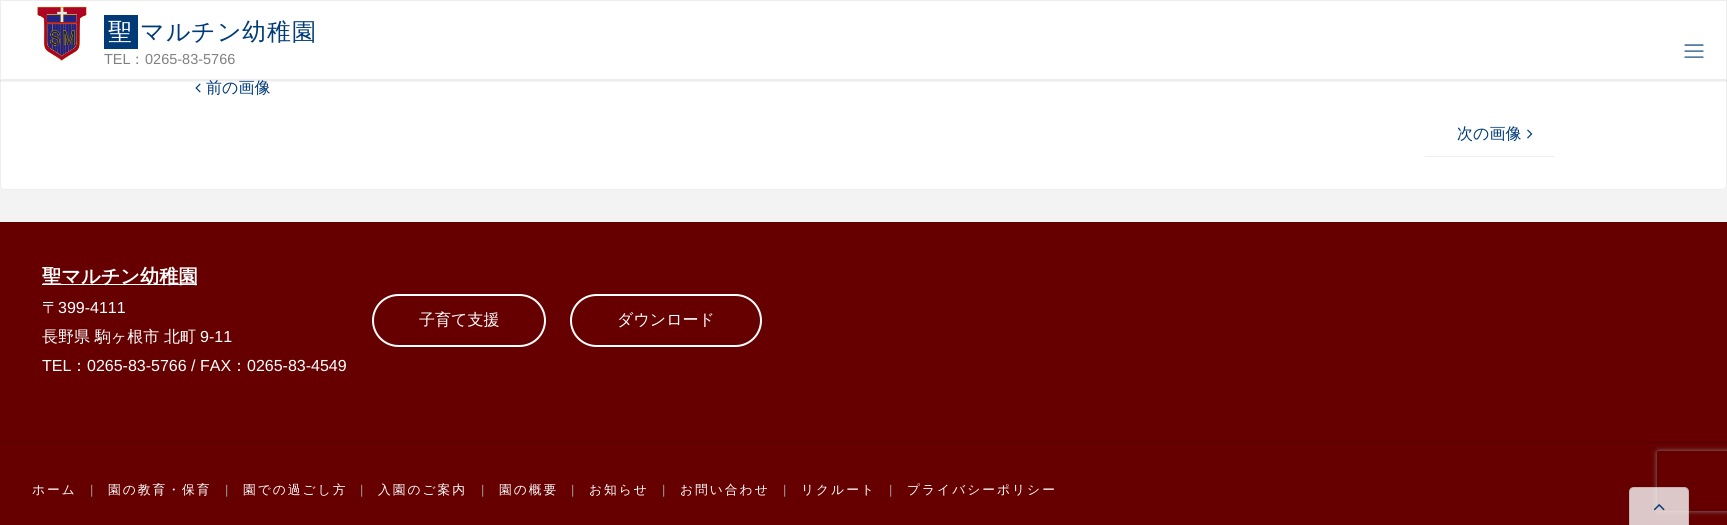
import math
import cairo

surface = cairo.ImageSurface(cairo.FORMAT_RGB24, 1727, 525)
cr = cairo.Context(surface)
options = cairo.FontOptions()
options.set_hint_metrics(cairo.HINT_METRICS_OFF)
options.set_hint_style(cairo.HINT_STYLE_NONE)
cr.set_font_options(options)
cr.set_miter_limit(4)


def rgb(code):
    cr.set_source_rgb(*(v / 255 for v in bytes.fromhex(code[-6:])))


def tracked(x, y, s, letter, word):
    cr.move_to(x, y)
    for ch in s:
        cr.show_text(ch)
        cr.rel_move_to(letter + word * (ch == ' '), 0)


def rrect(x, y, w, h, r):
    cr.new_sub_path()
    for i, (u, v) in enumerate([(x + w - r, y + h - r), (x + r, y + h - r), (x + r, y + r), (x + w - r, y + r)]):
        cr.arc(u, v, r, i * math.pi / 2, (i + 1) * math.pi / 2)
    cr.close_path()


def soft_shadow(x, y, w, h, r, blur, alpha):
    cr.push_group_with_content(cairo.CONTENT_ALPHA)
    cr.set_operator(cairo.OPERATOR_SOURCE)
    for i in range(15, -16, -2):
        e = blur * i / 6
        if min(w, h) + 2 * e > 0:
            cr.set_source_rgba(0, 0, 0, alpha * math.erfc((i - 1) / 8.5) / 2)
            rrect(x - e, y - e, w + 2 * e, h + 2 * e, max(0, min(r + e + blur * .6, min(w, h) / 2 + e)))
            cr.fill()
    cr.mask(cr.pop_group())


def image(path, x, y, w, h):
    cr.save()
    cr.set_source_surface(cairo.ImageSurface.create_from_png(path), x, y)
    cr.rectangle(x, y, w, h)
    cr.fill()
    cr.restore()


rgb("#f3f3f3")
cr.paint()
rgb("#ffffff")
rrect(0, -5, 1727, 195, 5)
cr.fill()
rrect(0.5, -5.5, 1726, 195, 4.5)
cr.set_source_rgba(0, 0, 0, 0.07)
cr.set_line_width(1)
cr.stroke()
image("img/3.png", 195, 83, 6, 10)
rgb("#000000")
soft_shadow(0, 0, 1727, 80, 0, 1.5, 0.2)
rgb("#ffffff")
cr.rectangle(0.5, 0.5, 1726, 79)
cr.fill_preserve()
rgb("#ededed")
cr.stroke()
image("img/1.png", 37, 6, 50, 56)
rgb("#003b78")
cr.rectangle(104, 15, 34, 34)
cr.fill()
image("img/2.png", 1684, 44, 20, 14)
image("img/4.png", 1527, 129, 6, 10)
for x, y, w, h, color in [
    (1425, 156, 129, 1, "#eeeeee"),
    (0, 223, 1727, 219, "#660000"),
    (0, 222, 1727, 1, "#5f0000"),
    (42, 284, 155, 1, "#ffffff"),
]:
    rgb(color)
    cr.rectangle(x, y, w, h)
    cr.fill()
rrect(373, 295, 172, 51, 25.5)
cr.set_line_width(2)
cr.stroke()
rrect(571, 295, 190, 51, 25.5)
cr.stroke()
rgb("#660000")
cr.rectangle(0, 443, 1727, 82)
cr.fill()
rgb("#520000")
cr.rectangle(0, 442, 1727, 1)
cr.fill()
cr.save()
cr.set_fill_rule(cairo.FILL_RULE_EVEN_ODD)
cr.new_path()
cr.move_to(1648, 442)
cr.line_to(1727, 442)
cr.line_to(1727, 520)
cr.line_to(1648, 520)
cr.close_path()
cr.move_to(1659, 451)
cr.line_to(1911, 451)
cr.curve_to(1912, 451, 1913, 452, 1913, 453)
cr.line_to(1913, 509)
cr.curve_to(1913, 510, 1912, 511, 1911, 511)
cr.line_to(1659, 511)
cr.curve_to(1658, 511, 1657, 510, 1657, 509)
cr.line_to(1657, 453)
cr.curve_to(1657, 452, 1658, 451, 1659, 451)
cr.close_path()
cr.clip()
rgb("#808080")
soft_shadow(1657, 451, 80, 60, 2, 2.5, 1)
cr.restore()
cr.set_source_rgba(0.98, 0.98, 0.98, 0.8)
cr.new_path()
cr.move_to(1634, 487)
cr.line_to(1684, 487)
cr.curve_to(1687, 487, 1689, 489, 1689, 492)
cr.line_to(1689, 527)
cr.line_to(1629, 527)
cr.line_to(1629, 492)
cr.curve_to(1629, 489, 1631, 487, 1634, 487)
cr.close_path()
cr.fill()
cr.new_path()
cr.move_to(1634, 487.5)
cr.line_to(1684, 487.5)
cr.curve_to(1686.5, 487.5, 1688.5, 489.5, 1688.5, 492)
cr.line_to(1688.5, 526.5)
cr.line_to(1629.5, 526.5)
cr.line_to(1629.5, 492)
cr.curve_to(1629.5, 489.5, 1631.5, 487.5, 1634, 487.5)
cr.close_path()
cr.set_source_rgba(0, 0, 0, 0.1)
cr.set_line_width(1)
cr.stroke()
image("img/5.png", 1653, 504, 12, 7)
cr.select_font_face("WenQuanYi Zen Hei Medium")
cr.set_font_size(24)
rgb("#ffffff")
cr.move_to(108, 40)
cr.show_text("聖")
rgb("#003b78")
for x, y, s in [
    (140, 40, "マ"),
    (166, 40, "ル"),
    (191, 40, "チ"),
    (217, 40, "ン"),
    (242, 40, "幼"),
    (267, 40, "稚"),
    (292, 40, "園"),
]:
    cr.move_to(x, y)
    cr.show_text(s)
cr.select_font_face("Liberation Sans")
cr.set_font_size(14.5)
rgb("#808080")
cr.move_to(104, 64)
cr.show_text("TEL")
cr.select_font_face("WenQuanYi Zen Hei Medium")
cr.move_to(130, 64)
cr.show_text("：")
cr.select_font_face("Liberation Sans")
cr.move_to(145, 64)
cr.show_text("0265-83-5766")
cr.select_font_face("WenQuanYi Zen Hei Medium")
cr.set_font_size(16)
rgb("#003b78")
cr.move_to(206, 93)
cr.show_text("前の画像")
cr.move_to(1457, 139)
cr.show_text("次の画像")
cr.select_font_face("WenQuanYi Zen Hei", cairo.FONT_SLANT_NORMAL, cairo.FONT_WEIGHT_BOLD)
cr.set_font_size(19.25)
rgb("#ffffff")
cr.move_to(42, 283)
cr.show_text("聖マルチン幼稚園")
cr.select_font_face("WenQuanYi Zen Hei Medium")
cr.set_font_size(16)
cr.move_to(42, 313)
cr.show_text("〒")
cr.select_font_face("Liberation Sans")
cr.move_to(58, 313)
cr.show_text("399-4111")
cr.select_font_face("WenQuanYi Zen Hei Medium")
cr.move_to(42, 342)
cr.show_text("長野県 駒ヶ根市 北町")
cr.select_font_face("Liberation Sans")
cr.move_to(200, 342)
cr.show_text("9-11")
cr.move_to(42, 371)
cr.show_text("TEL")
cr.select_font_face("WenQuanYi Zen Hei Medium")
cr.move_to(71, 371)
cr.show_text("：")
cr.select_font_face("Liberation Sans")
cr.move_to(87, 371)
cr.show_text("0265-83-5766 / FAX")
cr.select_font_face("WenQuanYi Zen Hei Medium")
cr.move_to(231, 371)
cr.show_text("：")
cr.select_font_face("Liberation Sans")
cr.move_to(247, 371)
cr.show_text("0265-83-4549")
cr.select_font_face("WenQuanYi Zen Hei Medium")
cr.move_to(419, 325)
cr.show_text("子育て支援")
cr.move_to(617, 325)
cr.show_text("ダウンロード")
cr.set_font_size(12.75)
tracked(32, 494, "ホーム", 2, 0)
cr.select_font_face("Liberation Sans")
rgb("#9a9a9a")
tracked(90, 494, "|", 2, 0)
cr.select_font_face("WenQuanYi Zen Hei Medium")
rgb("#ffffff")
tracked(108, 494, "園の教育・保育", 2, 0)
cr.select_font_face("Liberation Sans")
rgb("#9a9a9a")
tracked(225, 494, "|", 2, 0)
cr.select_font_face("WenQuanYi Zen Hei Medium")
rgb("#ffffff")
tracked(243, 494, "園での過ごし方", 2, 0)
cr.select_font_face("Liberation Sans")
rgb("#9a9a9a")
tracked(360, 494, "|", 2, 0)
cr.select_font_face("WenQuanYi Zen Hei Medium")
rgb("#ffffff")
tracked(378, 494, "入園のご案内", 2, 0)
cr.select_font_face("Liberation Sans")
rgb("#9a9a9a")
tracked(481, 494, "|", 2, 0)
cr.select_font_face("WenQuanYi Zen Hei Medium")
rgb("#ffffff")
tracked(499, 494, "園の概要", 2, 0)
cr.select_font_face("Liberation Sans")
rgb("#9a9a9a")
tracked(571, 494, "|", 2, 0)
cr.select_font_face("WenQuanYi Zen Hei Medium")
rgb("#ffffff")
tracked(589, 494, "お知らせ", 2, 0)
cr.select_font_face("Liberation Sans")
rgb("#9a9a9a")
tracked(662, 494, "|", 2, 0)
cr.select_font_face("WenQuanYi Zen Hei Medium")
rgb("#ffffff")
tracked(680, 494, "お問い合わせ", 2, 0)
cr.select_font_face("Liberation Sans")
rgb("#9a9a9a")
tracked(783, 494, "|", 2, 0)
cr.select_font_face("WenQuanYi Zen Hei Medium")
rgb("#ffffff")
tracked(801, 494, "リクルート", 2, 0)
cr.select_font_face("Liberation Sans")
rgb("#9a9a9a")
tracked(889, 494, "|", 2, 0)
cr.select_font_face("WenQuanYi Zen Hei Medium")
rgb("#ffffff")
tracked(907, 494, "プライバシーポリシー", 2, 0)
surface.write_to_png("page.png")
